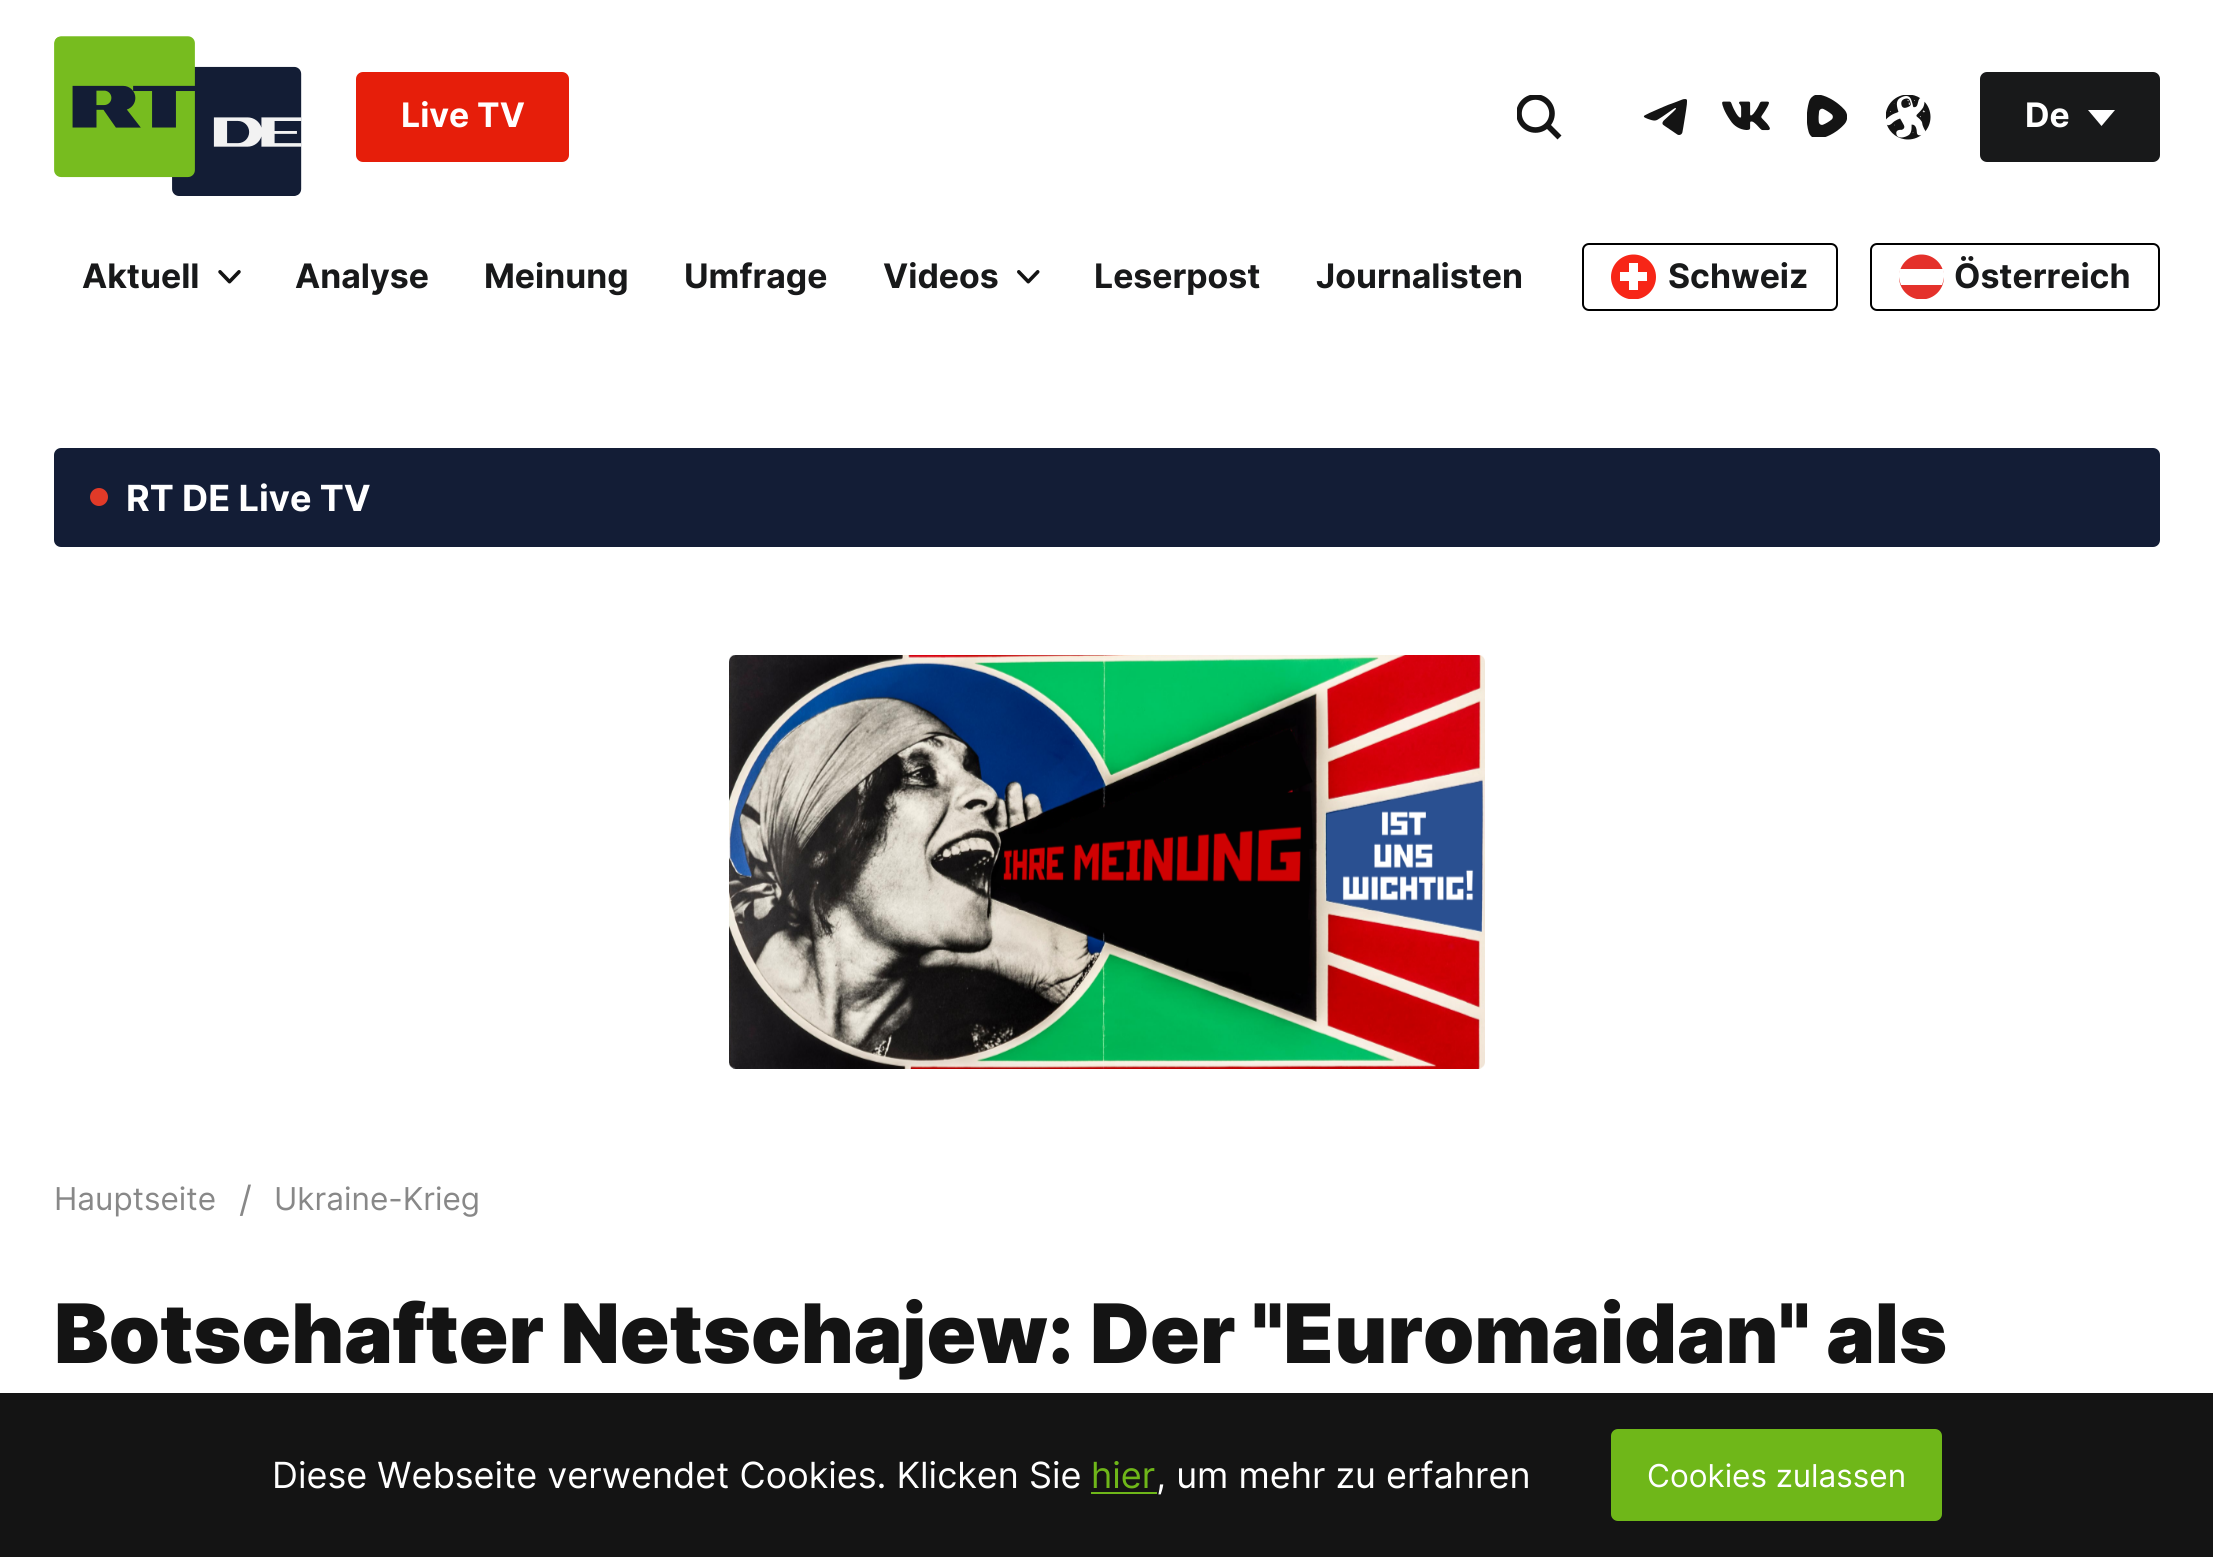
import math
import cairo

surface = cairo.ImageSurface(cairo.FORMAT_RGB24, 2213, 1557)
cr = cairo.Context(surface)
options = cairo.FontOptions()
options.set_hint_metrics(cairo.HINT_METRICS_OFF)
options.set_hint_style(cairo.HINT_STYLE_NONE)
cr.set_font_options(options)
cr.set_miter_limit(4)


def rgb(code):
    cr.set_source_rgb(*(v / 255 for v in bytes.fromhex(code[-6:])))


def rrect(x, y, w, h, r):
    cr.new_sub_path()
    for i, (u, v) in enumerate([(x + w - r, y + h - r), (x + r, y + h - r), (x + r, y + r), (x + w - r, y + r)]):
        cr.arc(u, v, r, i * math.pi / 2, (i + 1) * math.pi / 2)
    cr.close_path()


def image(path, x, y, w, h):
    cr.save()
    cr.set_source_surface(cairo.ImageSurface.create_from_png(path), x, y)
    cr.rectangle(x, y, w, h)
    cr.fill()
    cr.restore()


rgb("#ffffff")
cr.paint()
image("img/1.png", 54, 36, 248, 160)
rgb("#e61e0a")
rrect(356, 72, 213, 90, 7)
cr.fill()
cr.save()
cr.rectangle(1517, 95, 45, 45)
cr.clip()
cr.arc(1535.5, 113.5, 16.5, 0, 2 * math.pi)
rgb("#141414")
cr.set_line_width(5.6)
cr.stroke()
cr.restore()
cr.new_path()
cr.move_to(1547.5, 125.5)
cr.line_to(1559.5, 137.5)
rgb("#141414")
cr.set_line_width(5.6)
cr.stroke()
image("img/2.png", 1643, 99, 44, 36)
image("img/3.png", 1722, 101, 48, 30)
image("img/4.png", 1807, 95, 40, 42)
image("img/5.png", 1886, 95, 45, 45)
rgb("#18191a")
rrect(1980, 72, 180, 90, 7)
cr.fill()
rgb("#ffffff")
cr.new_path()
cr.move_to(2088, 110)
cr.line_to(2115, 110)
cr.line_to(2101.5, 126)
cr.close_path()
cr.fill()
image("img/6.png", 218, 270, 23, 14)
image("img/7.png", 1017, 270, 23, 14)
rrect(1583, 244, 254, 66, 6)
rgb("#000000")
cr.set_line_width(2)
cr.stroke()
cr.save()
cr.rectangle(1611, 254, 45, 45)
cr.clip()
rgb("#f72617")
cr.arc(1633.5, 277, 22.5, 0, 2 * math.pi)
cr.fill()
cr.restore()
rgb("#ffffff")
cr.rectangle(1629, 263, 9, 27)
cr.fill()
cr.rectangle(1620, 272, 27, 9)
cr.fill()
rrect(1871, 244, 288, 66, 6)
rgb("#000000")
cr.stroke()
cr.save()
cr.rectangle(1899, 254, 45, 45)
cr.clip()
rgb("#e4312b")
cr.arc(1921.5, 277, 22.5, 0, 2 * math.pi)
cr.fill()
rgb("#ffffff")
cr.new_path()
cr.move_to(1901, 285)
cr.curve_to(1899, 280, 1898, 274, 1900, 269)
cr.line_to(1943, 269)
cr.curve_to(1945, 274, 1944, 280, 1942, 285)
cr.close_path()
cr.fill()
cr.restore()
rgb("#131d36")
rrect(54, 448, 2106, 99, 7)
cr.fill()
rgb("#e13a28")
cr.arc(99, 497, 9, 0, 2 * math.pi)
cr.fill()
image("img/8.png", 729, 655, 756, 414)
rgb("#141414")
cr.rectangle(0, 1393, 2213, 164)
cr.fill()
rgb("#6fb719")
cr.rectangle(1091, 1492, 66, 2)
cr.fill()
rrect(1611, 1429, 331, 92, 7)
cr.fill()
cr.select_font_face("Inter", cairo.FONT_SLANT_NORMAL, cairo.FONT_WEIGHT_BOLD)
cr.set_font_size(33.75)
rgb("#ffffff")
cr.move_to(401, 127)
cr.show_text("Live TV")
cr.move_to(2025, 127)
cr.show_text("De")
rgb("#18191a")
for x, y, s in [
    (82, 288, "Aktuell"),
    (295, 288, "Analyse"),
    (484, 288, "Meinung"),
    (684, 288, "Umfrage"),
    (883, 288, "Videos"),
    (1094, 288, "Leserpost"),
    (1316, 288, "Journalisten"),
    (1668, 288, "Schweiz"),
    (1954, 288, "Österreich"),
]:
    cr.move_to(x, y)
    cr.show_text(s)
cr.set_font_size(36)
rgb("#ffffff")
cr.move_to(126, 511)
cr.show_text("RT DE Live TV")
cr.select_font_face("Inter")
cr.set_font_size(31.5)
rgb("#888888")
cr.move_to(54, 1210)
cr.show_text("Hauptseite")
cr.set_font_size(36)
cr.move_to(239, 1212)
cr.show_text("/")
cr.set_font_size(31.5)
cr.move_to(274, 1210)
cr.show_text("Ukraine-Krieg")
cr.select_font_face("Inter Black")
cr.set_font_size(82)
rgb("#141414")
cr.move_to(54, 1363)
cr.show_text("Botschafter Netschajew: Der \"Euromaidan\" als")
cr.select_font_face("Inter")
cr.set_font_size(36)
rgb("#ffffff")
cr.move_to(272, 1488)
cr.show_text("Diese Webseite verwendet Cookies. Klicken Sie")
rgb("#6fb719")
cr.move_to(1091, 1488)
cr.show_text("hier")
rgb("#ffffff")
cr.move_to(1156, 1488)
cr.show_text(", um mehr zu erfahren")
cr.set_font_size(31.5)
cr.move_to(1647, 1487)
cr.show_text("Cookies zulassen")
surface.write_to_png("page.png")
